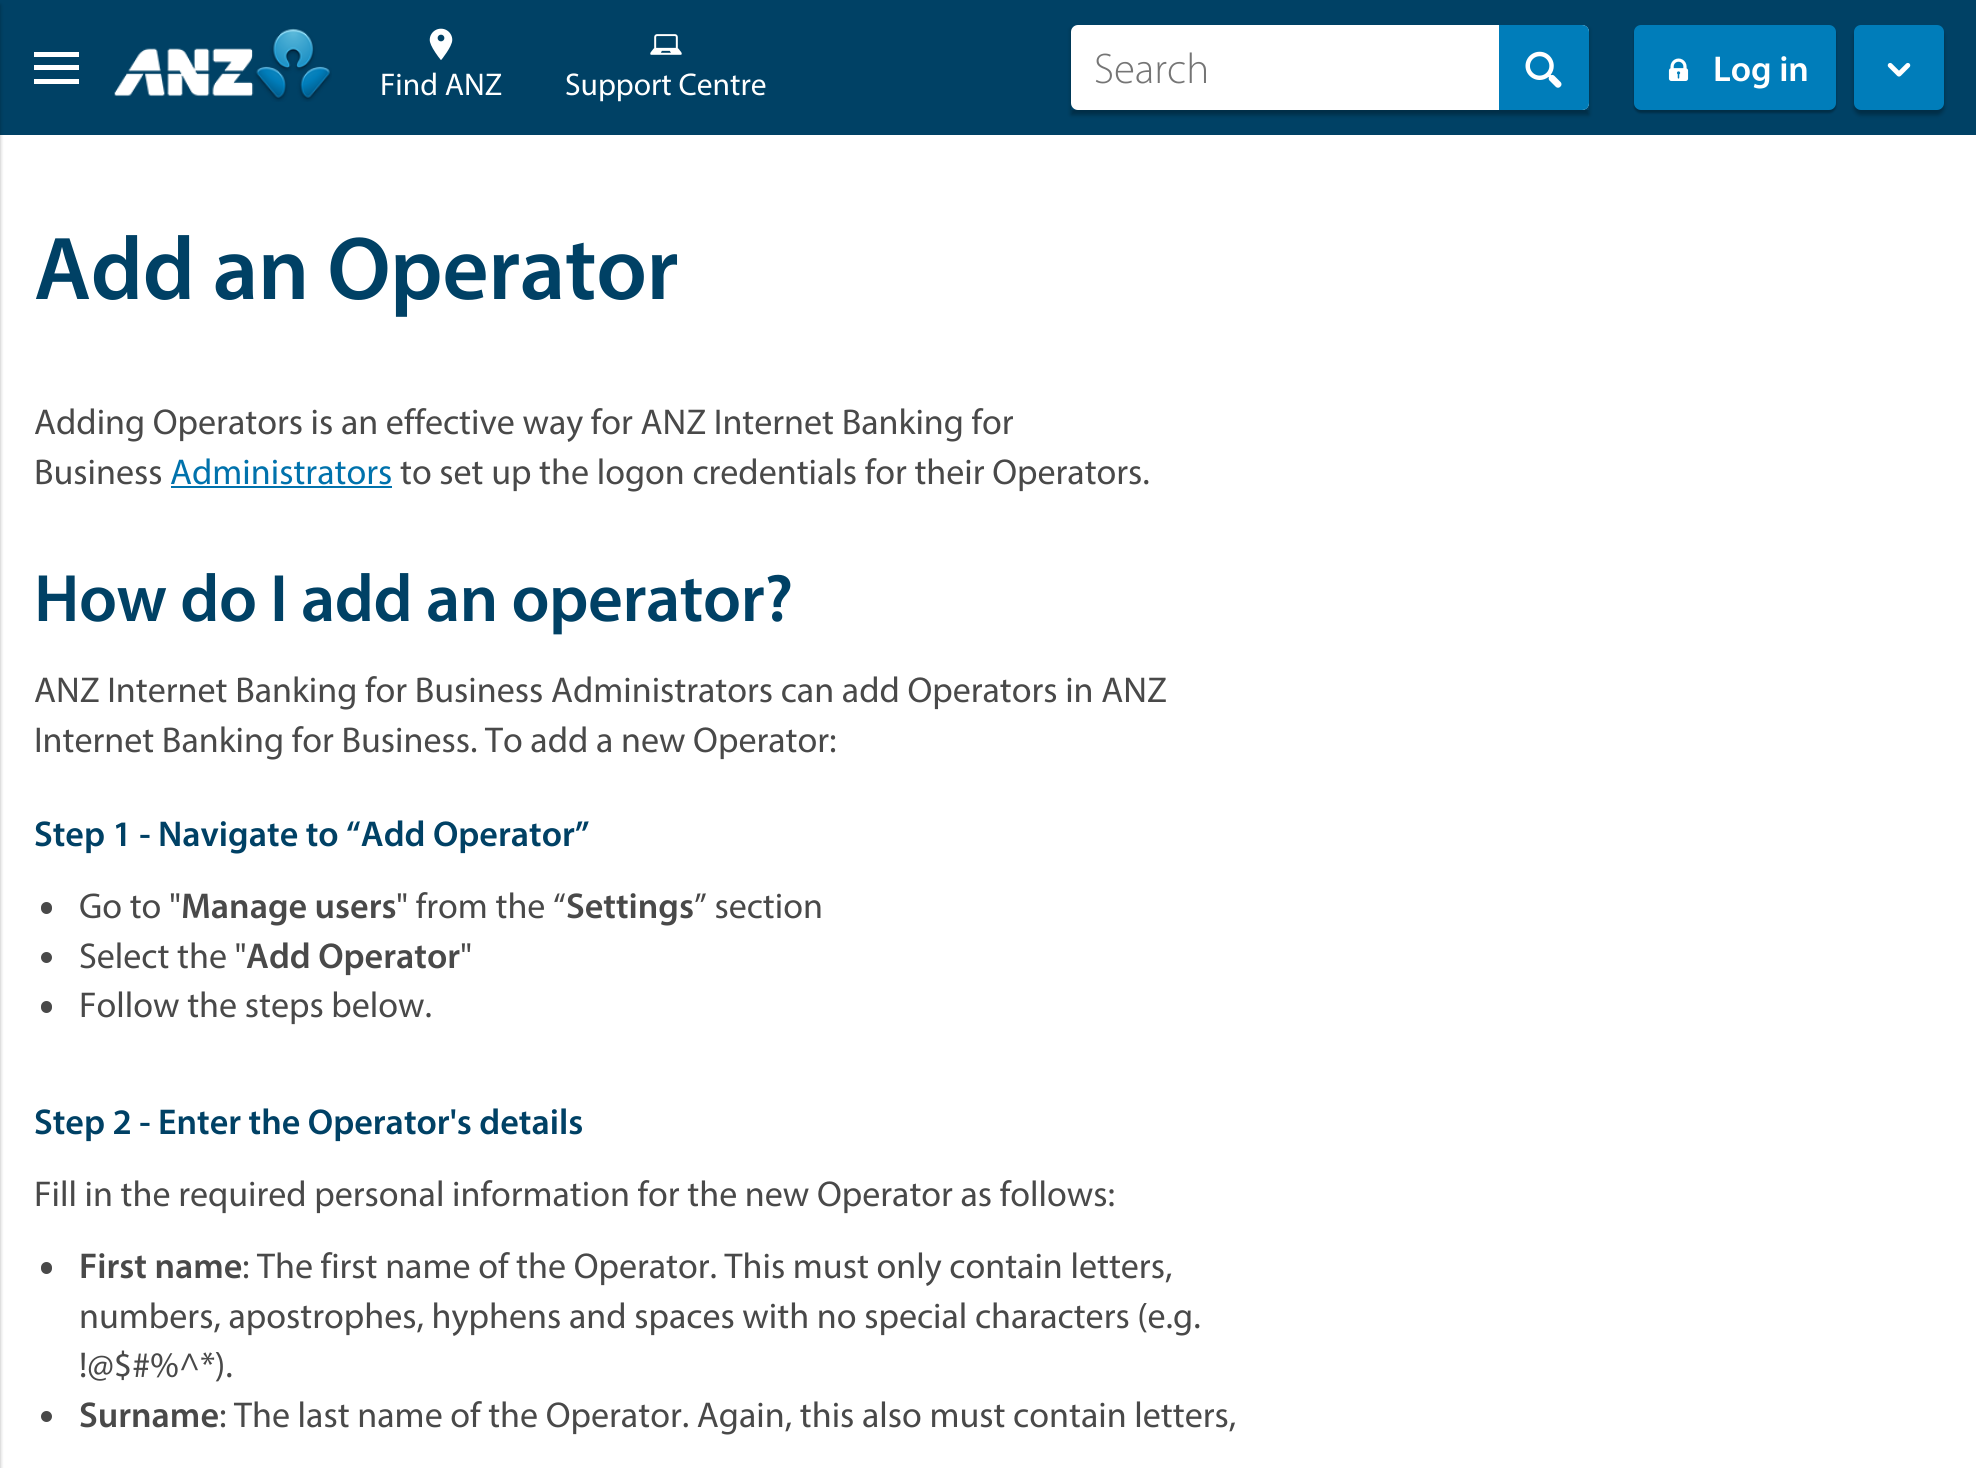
import math
import cairo

surface = cairo.ImageSurface(cairo.FORMAT_RGB24, 1976, 1468)
cr = cairo.Context(surface)
options = cairo.FontOptions()
options.set_hint_metrics(cairo.HINT_METRICS_OFF)
options.set_hint_style(cairo.HINT_STYLE_NONE)
cr.set_font_options(options)
cr.set_miter_limit(4)


def rgb(code):
    cr.set_source_rgb(*(v / 255 for v in bytes.fromhex(code[-6:])))


def tracked(x, y, s, letter, word):
    cr.move_to(x, y)
    for ch in s:
        cr.show_text(ch)
        cr.rel_move_to(letter + word * (ch == ' '), 0)


def rrect(x, y, w, h, r):
    cr.new_sub_path()
    for i, (u, v) in enumerate([(x + w - r, y + h - r), (x + r, y + h - r), (x + r, y + r), (x + w - r, y + r)]):
        cr.arc(u, v, r, i * math.pi / 2, (i + 1) * math.pi / 2)
    cr.close_path()


def soft_shadow(x, y, w, h, r, blur, alpha):
    cr.push_group_with_content(cairo.CONTENT_ALPHA)
    cr.set_operator(cairo.OPERATOR_SOURCE)
    for i in range(15, -16, -2):
        e = blur * i / 6
        if min(w, h) + 2 * e > 0:
            cr.set_source_rgba(0, 0, 0, alpha * math.erfc((i - 1) / 8.5) / 2)
            rrect(x - e, y - e, w + 2 * e, h + 2 * e, max(0, min(r + e + blur * .6, min(w, h) / 2 + e)))
            cr.fill()
    cr.mask(cr.pop_group())


def image(path, x, y, w, h):
    cr.save()
    cr.set_source_surface(cairo.ImageSurface.create_from_png(path), x, y)
    cr.rectangle(x, y, w, h)
    cr.fill()
    cr.restore()


rgb("#ffffff")
cr.paint()
rgb("#004165")
cr.rectangle(0, 0, 1976, 135)
cr.fill()
rgb("#000000")
soft_shadow(-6, 5, 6, 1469, 0, 2, 0.3)
for x, y, w, h, color in [
    (34, 52, 45, 5, "#ffffff"),
    (34, 65, 45, 5, "#ffffff"),
    (34, 79, 45, 5, "#ffffff"),
]:
    rgb(color)
    cr.rectangle(x, y, w, h)
    cr.fill()
image("img/1.png", 114, 28, 218, 74)
image("img/2.png", 429, 28, 24, 32)
image("img/3.png", 650, 34, 32, 21)
cr.save()
cr.set_fill_rule(cairo.FILL_RULE_EVEN_ODD)
cr.new_path()
cr.move_to(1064, 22)
cr.line_to(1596, 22)
cr.line_to(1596, 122)
cr.line_to(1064, 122)
cr.close_path()
cr.move_to(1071, 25)
cr.line_to(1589, 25)
cr.line_to(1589, 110)
cr.line_to(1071, 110)
cr.close_path()
cr.clip()
rgb("#000000")
soft_shadow(1071, 29, 518, 86, 0, 2, 0.3)
cr.restore()
rrect(1071, 25, 518, 85, 7)
cr.fill()
rgb("#007dba")
cr.new_path()
cr.move_to(1499, 25)
cr.line_to(1582, 25)
cr.curve_to(1586, 25, 1589, 28, 1589, 32)
cr.line_to(1589, 103)
cr.curve_to(1589, 107, 1586, 110, 1582, 110)
cr.line_to(1499, 110)
cr.close_path()
cr.fill()
image("img/4.png", 1525, 51, 37, 37)
rgb("#000000")
soft_shadow(1634, 27, 202, 86, 7, 1, 0.3)
rgb("#007dba")
rrect(1634, 25, 202, 85, 7)
cr.fill()
image("img/5.png", 1668, 58, 21, 23)
rgb("#000000")
soft_shadow(1854, 29, 90, 86, 7, 2, 0.3)
rgb("#007dba")
rrect(1854, 25, 90, 85, 7)
cr.fill()
image("img/6.png", 1887, 62, 24, 15)
rgb("#0072ac")
cr.rectangle(171, 486, 221, 2)
cr.fill()
rgb("#494949")
rrect(41, 902, 11, 12, 5.5)
cr.fill()
cr.arc(46.5, 957.5, 5.5, 0, 2 * math.pi)
cr.fill()
rrect(41, 1001, 11, 12, 5.5)
cr.fill()
rrect(41, 1262, 11, 12, 5.5)
cr.fill()
cr.arc(46.5, 1416.5, 5.5, 0, 2 * math.pi)
cr.fill()
cr.select_font_face("Myriad")
cr.set_font_size(31.5)
rgb("#ffffff")
cr.move_to(380, 95)
cr.show_text("Find ANZ")
cr.move_to(565, 95)
cr.show_text("Support Centre")
cr.select_font_face("Myriad Light")
cr.set_font_size(43)
rgb("#757575")
cr.move_to(1094, 83)
cr.show_text("Search")
cr.select_font_face("Myriad SemiBold")
cr.set_font_size(36)
rgb("#ffffff")
cr.move_to(1713, 81)
cr.show_text("Log in")
cr.set_font_size(90)
rgb("#004165")
tracked(34, 299, "Add an Operator", -0.45, 0)
cr.select_font_face("Myriad")
cr.set_font_size(36)
rgb("#494949")
cr.move_to(34, 434)
cr.show_text("Adding Operators is an effective way for ANZ Internet Banking for")
cr.move_to(34, 484)
cr.show_text("Business")
rgb("#0072ac")
cr.move_to(170, 484)
cr.show_text("Administrators")
rgb("#494949")
cr.move_to(400, 484)
cr.show_text("to set up the logon credentials for their Operators.")
cr.select_font_face("Myriad SemiBold")
cr.set_font_size(67.5)
rgb("#004165")
tracked(34, 621, "How do I add an operator?", -0.45, 0)
cr.select_font_face("Myriad")
cr.set_font_size(36)
rgb("#494949")
cr.move_to(34, 702)
cr.show_text("ANZ Internet Banking for Business Administrators can add Operators in ANZ")
cr.move_to(34, 752)
cr.show_text("Internet Banking for Business. To add a new Operator:")
cr.select_font_face("Myriad SemiBold")
rgb("#004165")
cr.move_to(34, 846)
cr.show_text("Step 1 - Navigate to “Add Operator”")
cr.select_font_face("Myriad")
rgb("#494949")
cr.move_to(79, 918)
cr.show_text("Go to \"")
cr.select_font_face("Myriad SemiBold")
cr.move_to(181, 918)
cr.show_text("Manage users")
cr.select_font_face("Myriad")
cr.move_to(396, 918)
cr.show_text("\" from the “")
cr.select_font_face("Myriad SemiBold")
cr.move_to(566, 918)
cr.show_text("Settings")
cr.select_font_face("Myriad")
cr.move_to(694, 918)
cr.show_text("” section")
cr.move_to(79, 968)
cr.show_text("Select the \"")
cr.select_font_face("Myriad SemiBold")
cr.move_to(246, 968)
cr.show_text("Add Operator")
cr.select_font_face("Myriad")
cr.move_to(460, 968)
cr.show_text("\"")
cr.move_to(79, 1017)
cr.show_text("Follow the steps below.")
cr.select_font_face("Myriad SemiBold")
rgb("#004165")
cr.move_to(34, 1134)
cr.show_text("Step 2 - Enter the Operator's details")
cr.select_font_face("Myriad")
rgb("#494949")
cr.move_to(34, 1206)
cr.show_text("Fill in the required personal information for the new Operator as follows:")
cr.select_font_face("Myriad SemiBold")
cr.move_to(79, 1278)
cr.show_text("First name")
cr.select_font_face("Myriad")
for x, y, s in [
    (242, 1278, ": The first name of the Operator. This must only contain letters,"),
    (79, 1328, "numbers, apostrophes, hyphens and spaces with no special characters (e.g."),
    (79, 1377, "!@$#%^*)."),
]:
    cr.move_to(x, y)
    cr.show_text(s)
cr.select_font_face("Myriad SemiBold")
cr.move_to(79, 1427)
cr.show_text("Surname")
cr.select_font_face("Myriad")
cr.move_to(219, 1427)
cr.show_text(": The last name of the Operator. Again, this also must contain letters,")
surface.write_to_png("page.png")
